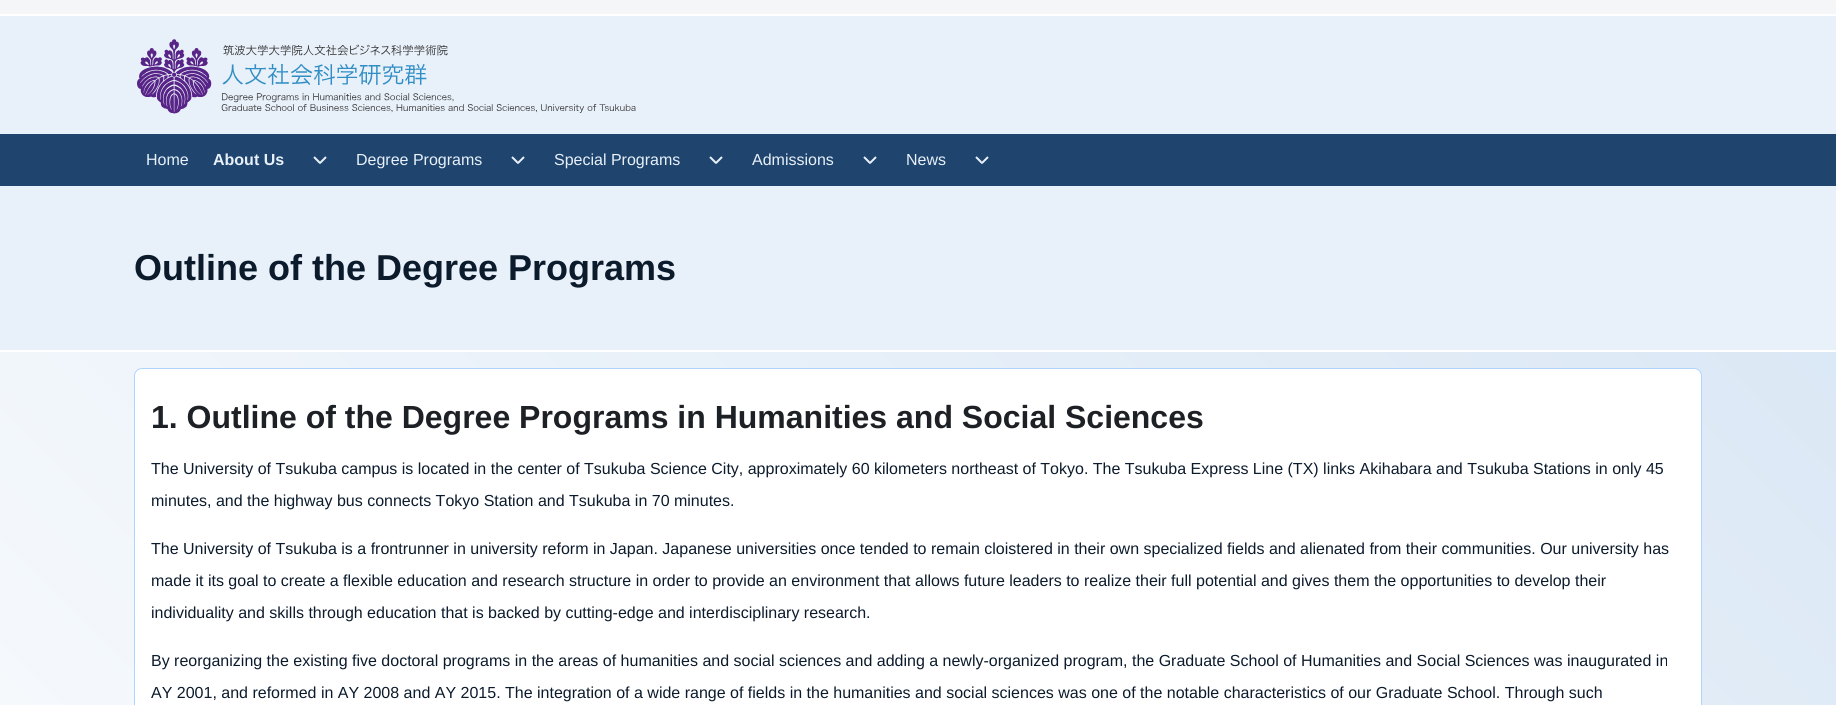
import math
import cairo

surface = cairo.ImageSurface(cairo.FORMAT_RGB24, 1836, 705)
cr = cairo.Context(surface)
options = cairo.FontOptions()
options.set_hint_metrics(cairo.HINT_METRICS_OFF)
options.set_hint_style(cairo.HINT_STYLE_NONE)
cr.set_font_options(options)
cr.set_miter_limit(4)


def rgb(code):
    cr.set_source_rgb(*(v / 255 for v in bytes.fromhex(code[-6:])))


def rrect(x, y, w, h, r):
    cr.new_sub_path()
    for i, (u, v) in enumerate([(x + w - r, y + h - r), (x + r, y + h - r), (x + r, y + r), (x + w - r, y + r)]):
        cr.arc(u, v, r, i * math.pi / 2, (i + 1) * math.pi / 2)
    cr.close_path()


def image(path, x, y, w, h):
    cr.save()
    cr.set_source_surface(cairo.ImageSurface.create_from_png(path), x, y)
    cr.rectangle(x, y, w, h)
    cr.fill()
    cr.restore()


rgb("#e8f0f9")
cr.paint()
rgb("#f4f6f7")
cr.rectangle(0, 0, 1836, 14)
cr.fill()
rgb("#ffffff")
cr.rectangle(0, 14, 1836, 2)
cr.fill()
image("img/1.png", 137, 39, 499, 75)
rgb("#1f456e")
cr.rectangle(0, 134, 1836, 52)
cr.fill()
cr.new_path()
cr.move_to(314, 157)
cr.line_to(320, 163)
cr.line_to(326, 157)
rgb("#e8f0f9")
cr.set_line_join(cairo.LINE_JOIN_BEVEL)
cr.stroke()
cr.new_path()
cr.move_to(512, 157)
cr.line_to(518, 163)
cr.line_to(524, 157)
cr.stroke()
cr.new_path()
cr.move_to(710, 157)
cr.line_to(716, 163)
cr.line_to(722, 157)
cr.stroke()
cr.new_path()
cr.move_to(864, 157)
cr.line_to(870, 163)
cr.line_to(876, 157)
cr.stroke()
cr.new_path()
cr.move_to(976, 157)
cr.line_to(982, 163)
cr.line_to(988, 157)
cr.stroke()
rgb("#ffffff")
cr.rectangle(0, 350, 1836, 2)
cr.fill()
gradient = cairo.LinearGradient(167, 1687, 1669, 185)
gradient.add_color_stop_rgba(0, 1, 1, 1, 1)
gradient.add_color_stop_rgba(1, 0.859, 0.91, 0.961, 1)
cr.set_source(gradient)
cr.rectangle(0, 352, 1836, 353)
cr.fill()
rgb("#ffffff")
rrect(134.5, 368.5, 1567, 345, 7.5)
cr.fill_preserve()
rgb("#b0d5fd")
cr.set_line_width(1)
cr.set_line_join(cairo.LINE_JOIN_MITER)
cr.stroke()
cr.select_font_face("Liberation Sans")
cr.set_font_size(16)
rgb("#e8f0f9")
cr.move_to(146, 165)
cr.show_text("Home")
cr.select_font_face("Liberation Sans", cairo.FONT_SLANT_NORMAL, cairo.FONT_WEIGHT_BOLD)
cr.move_to(213, 165)
cr.show_text("About Us")
cr.select_font_face("Liberation Sans")
for x, y, s in [
    (356, 165, "Degree Programs"),
    (554, 165, "Special Programs"),
    (752, 165, "Admissions"),
    (906, 165, "News"),
]:
    cr.move_to(x, y)
    cr.show_text(s)
cr.select_font_face("Liberation Sans", cairo.FONT_SLANT_NORMAL, cairo.FONT_WEIGHT_BOLD)
cr.set_font_size(36)
rgb("#0c1b2c")
cr.move_to(134, 280)
cr.show_text("Outline of the Degree Programs")
cr.set_font_size(32)
rgb("#1d2125")
cr.move_to(151, 428)
cr.show_text("1. Outline of the Degree Programs in Humanities and Social Sciences")
cr.select_font_face("Liberation Sans")
cr.set_font_size(16)
rgb("#0c1b2c")
for x, y, s in [
    (151, 474, "The University of Tsukuba campus is located in the center of Tsukuba Science City, approximately 60 kilometers northeast of Tokyo. The Tsukuba Express Line (TX) links Akihabara and Tsukuba Stations in only 45"),
    (151, 506, "minutes, and the highway bus connects Tokyo Station and Tsukuba in 70 minutes."),
    (151, 554, "The University of Tsukuba is a frontrunner in university reform in Japan. Japanese universities once tended to remain cloistered in their own specialized fields and alienated from their communities. Our university has"),
    (151, 586, "made it its goal to create a flexible education and research structure in order to provide an environment that allows future leaders to realize their full potential and gives them the opportunities to develop their"),
    (151, 618, "individuality and skills through education that is backed by cutting-edge and interdisciplinary research."),
    (151, 666, "By reorganizing the existing five doctoral programs in the areas of humanities and social sciences and adding a newly-organized program, the Graduate School of Humanities and Social Sciences was inaugurated in"),
    (151, 698, "AY 2001, and reformed in AY 2008 and AY 2015. The integration of a wide range of fields in the humanities and social sciences was one of the notable characteristics of our Graduate School. Through such"),
]:
    cr.move_to(x, y)
    cr.show_text(s)
surface.write_to_png("page.png")
